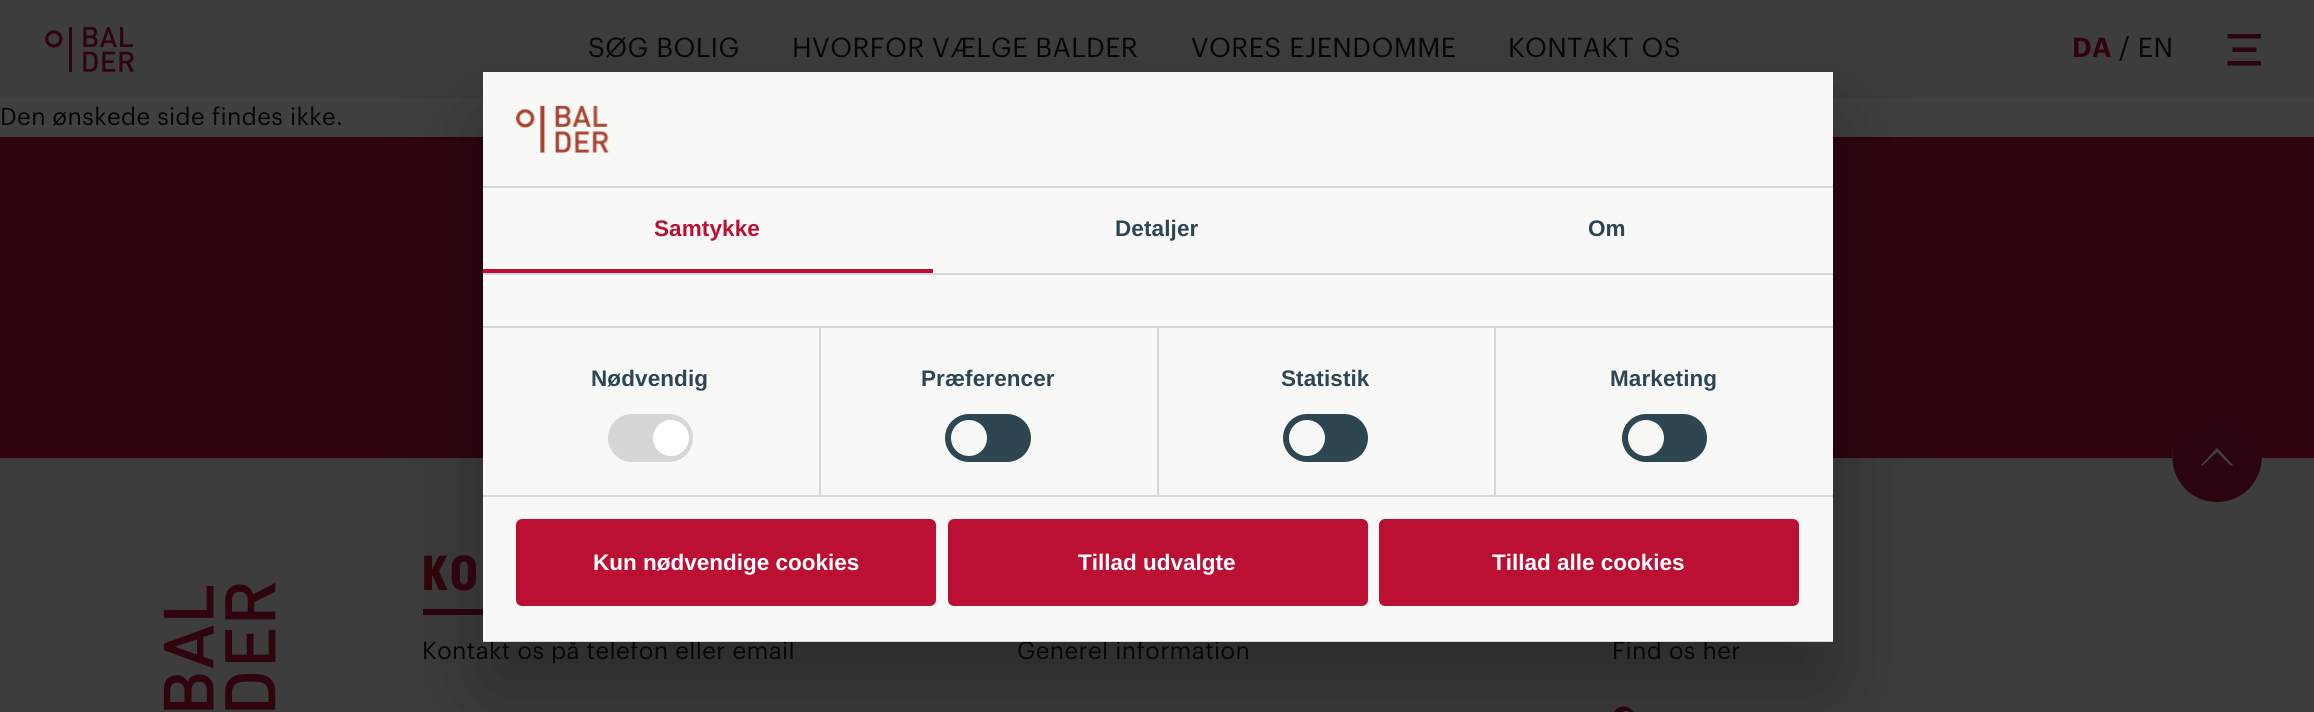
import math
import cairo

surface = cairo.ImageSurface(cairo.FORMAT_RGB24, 2314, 712)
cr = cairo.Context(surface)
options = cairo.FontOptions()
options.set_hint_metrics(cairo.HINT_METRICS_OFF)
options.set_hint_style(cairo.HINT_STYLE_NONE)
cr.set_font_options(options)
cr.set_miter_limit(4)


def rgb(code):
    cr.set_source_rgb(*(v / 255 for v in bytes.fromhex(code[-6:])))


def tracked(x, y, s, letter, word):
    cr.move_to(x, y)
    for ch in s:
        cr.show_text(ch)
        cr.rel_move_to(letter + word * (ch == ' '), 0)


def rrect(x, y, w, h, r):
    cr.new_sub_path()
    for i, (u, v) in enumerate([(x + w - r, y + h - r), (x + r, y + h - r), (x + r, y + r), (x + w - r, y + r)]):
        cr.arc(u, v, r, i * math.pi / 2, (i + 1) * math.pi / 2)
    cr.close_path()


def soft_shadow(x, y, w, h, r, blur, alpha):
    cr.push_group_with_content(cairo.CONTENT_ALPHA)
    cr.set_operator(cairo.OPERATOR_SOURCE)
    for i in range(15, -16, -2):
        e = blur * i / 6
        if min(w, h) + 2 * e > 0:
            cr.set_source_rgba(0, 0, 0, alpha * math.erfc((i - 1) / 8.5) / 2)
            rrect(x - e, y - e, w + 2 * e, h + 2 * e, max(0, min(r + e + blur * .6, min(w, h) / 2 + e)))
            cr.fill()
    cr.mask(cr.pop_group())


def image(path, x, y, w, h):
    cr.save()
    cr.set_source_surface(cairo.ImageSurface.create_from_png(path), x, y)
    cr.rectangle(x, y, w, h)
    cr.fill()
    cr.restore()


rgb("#404040")
cr.paint()
rgb("#3d3d3d")
cr.rectangle(0, 0, 2314, 98)
cr.fill()
image("img/1.png", 45, 27, 89, 45)
rgb("#2b040d")
cr.new_path()
cr.move_to(2227.5, 34)
cr.line_to(2261, 34)
cr.line_to(2261, 38.5)
cr.line_to(2227.5, 38.5)
cr.close_path()
cr.move_to(2232.5, 47.5)
cr.line_to(2256.5, 47.5)
cr.line_to(2256.5, 52)
cr.line_to(2232.5, 52)
cr.close_path()
cr.move_to(2227.5, 61)
cr.line_to(2261, 61)
cr.line_to(2261, 65.5)
cr.line_to(2227.5, 65.5)
cr.close_path()
cr.fill()
rgb("#2f040d")
cr.rectangle(0, 137, 2314, 321)
cr.fill()
rgb("#3d3d3d")
cr.rectangle(0, 458, 2314, 254)
cr.fill()
rgb("#404040")
cr.new_path()
cr.move_to(2260, 458)
cr.curve_to(2260, 467, 2257, 476, 2251, 484)
cr.curve_to(2226, 518, 2172, 500, 2172, 458)
cr.curve_to(2172, 448, 2175, 439, 2181, 431)
cr.curve_to(2206, 397, 2260, 416, 2260, 458)
cr.close_path()
cr.fill()
rgb("#2b040d")
cr.new_path()
cr.move_to(2217, 412)
cr.curve_to(2207, 412, 2198, 416, 2190, 421)
cr.curve_to(2156, 447, 2174, 502, 2217, 502)
cr.curve_to(2260, 502, 2278, 447, 2244, 421)
cr.curve_to(2236, 416, 2227, 412, 2217, 412)
cr.close_path()
cr.move_to(2231, 466)
cr.line_to(2217, 452)
cr.line_to(2202, 466)
cr.line_to(2201, 465)
cr.line_to(2217, 448)
cr.line_to(2233, 465)
cr.close_path()
cr.fill()
image("img/2.png", 163, 583, 113, 127)
cr.rectangle(423, 609, 60, 6)
cr.fill()
image("img/3.png", 1614, 706, 20, 6)
rgb("#000000")
soft_shadow(483, 120, 1350, 570, 0, 51, 0.3)
cr.select_font_face("Graphik")
cr.set_font_size(27)
rgb("#070606")
for x, y, s in [
    (588, 57, "SØG BOLIG"),
    (792, 57, "HVORFOR VÆLGE BALDER"),
    (1191, 57, "VORES EJENDOMME"),
    (1508, 57, "KONTAKT OS"),
]:
    tracked(x, y, s, 0.4, 0)
cr.select_font_face("Graphik SemiBold")
rgb("#2f040d")
tracked(2072, 57, "DA", 0.4, 0)
cr.select_font_face("Graphik")
rgb("#070606")
tracked(2119, 57, "/ EN", 0.4, 0)
cr.set_font_size(24)
tracked(0, 125, "Den ønskede side findes ikke.", 0.4, 0)
cr.select_font_face("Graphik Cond", cairo.FONT_SLANT_NORMAL, cairo.FONT_WEIGHT_BOLD)
cr.set_font_size(48)
rgb("#2f040d")
tracked(422, 590, "KO", 2, 0)
cr.select_font_face("Graphik")
cr.set_font_size(24)
rgb("#070606")
for x, y, s in [
    (422, 659, "Kontakt os på telefon eller email"),
    (1017, 659, "Generel information"),
    (1612, 659, "Find os her"),
]:
    tracked(x, y, s, 0.4, 0)
rgb("#f8f9f7")
cr.rectangle(483, 72, 1350, 569)
cr.fill()
rgb("#d6d6d6")
cr.rectangle(483, 186, 1350, 2)
cr.fill()
image("img/4.png", 516, 105, 93, 48)
cr.rectangle(483, 273, 1350, 2)
cr.fill()
rgb("#bb0f33")
cr.rectangle(483, 269, 450, 4)
cr.fill()
cr.select_font_face("Liberation Sans", cairo.FONT_SLANT_NORMAL, cairo.FONT_WEIGHT_BOLD)
cr.set_font_size(22.5)
tracked(654, 236, "Samtykke", 0.1, 0)
rgb("#2e4652")
tracked(1115, 236, "Detaljer", 0.1, 0)
tracked(1588, 236, "Om", 0.1, 0)
rgb("#d6d6d6")
cr.rectangle(483, 495, 1350, 2)
cr.fill()
cr.rectangle(819, 327, 2, 168)
cr.fill()
rgb("#2e4652")
tracked(591, 386, "Nødvendig", 0.1, 0)
rgb("#d6d6d6")
rrect(608, 414, 85, 48, 24)
cr.fill()
rgb("#ffffff")
cr.arc(671, 438, 18, 0, 2 * math.pi)
cr.fill()
rgb("#d6d6d6")
cr.rectangle(1157, 327, 2, 168)
cr.fill()
rgb("#2e4652")
tracked(921, 386, "Præferencer", 0.1, 0)
rrect(945, 414, 86, 48, 24)
cr.fill()
rgb("#f8f9f7")
cr.arc(969, 438, 18, 0, 2 * math.pi)
cr.fill()
rgb("#d6d6d6")
cr.rectangle(1494, 327, 2, 168)
cr.fill()
cr.rectangle(483, 326, 1350, 2)
cr.fill()
rgb("#2e4652")
tracked(1281, 386, "Statistik", 0.1, 0)
rrect(1283, 414, 85, 48, 24)
cr.fill()
rgb("#f8f9f7")
cr.arc(1307, 438, 18, 0, 2 * math.pi)
cr.fill()
rgb("#2e4652")
tracked(1610, 386, "Marketing", 0.1, 0)
rrect(1622, 414, 85, 48, 24)
cr.fill()
rgb("#f8f9f7")
cr.arc(1646, 438, 18, 0, 2 * math.pi)
cr.fill()
rgb("#d6d6d6")
cr.rectangle(483, 641, 1350, 1)
cr.fill()
rgb("#bb0f33")
rrect(517.5, 520.5, 417, 84, 4.5)
cr.fill_preserve()
cr.set_line_width(3)
cr.stroke()
rgb("#ffffff")
cr.move_to(593, 570)
cr.show_text("Kun nødvendige cookies")
rgb("#bb0f33")
rrect(949.5, 520.5, 417, 84, 4.5)
cr.fill_preserve()
cr.stroke()
rgb("#ffffff")
cr.move_to(1078, 570)
cr.show_text("Tillad udvalgte")
rgb("#bb0f33")
rrect(1380.5, 520.5, 417, 84, 4.5)
cr.fill_preserve()
cr.stroke()
rgb("#ffffff")
cr.move_to(1492, 570)
cr.show_text("Tillad alle cookies")
surface.write_to_png("page.png")
